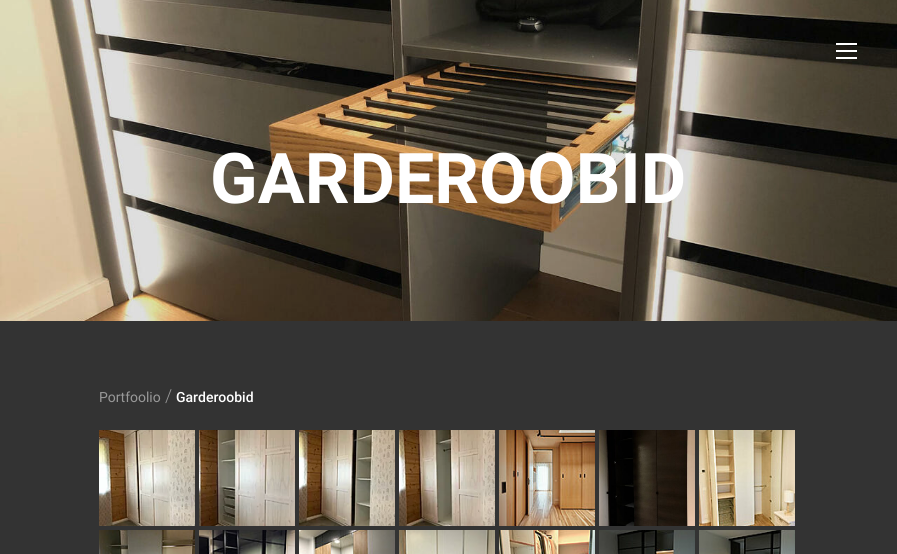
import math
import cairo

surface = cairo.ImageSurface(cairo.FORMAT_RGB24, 897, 554)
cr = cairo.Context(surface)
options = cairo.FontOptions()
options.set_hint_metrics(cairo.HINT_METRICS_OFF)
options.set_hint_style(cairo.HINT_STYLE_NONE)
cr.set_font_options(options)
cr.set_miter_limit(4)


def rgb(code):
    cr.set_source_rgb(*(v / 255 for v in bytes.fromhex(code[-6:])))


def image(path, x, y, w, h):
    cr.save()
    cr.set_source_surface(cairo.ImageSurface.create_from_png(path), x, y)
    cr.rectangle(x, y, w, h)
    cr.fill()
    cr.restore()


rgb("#ffffff")
cr.paint()
image("img/1.png", 0, 0, 897, 321)
for x, y, w, h, color in [
    (836, 43, 21, 2, "#ffffff"),
    (836, 50, 21, 2, "#ffffff"),
    (836, 57, 21, 2, "#ffffff"),
    (0, 321, 897, 233, "#333333"),
]:
    rgb(color)
    cr.rectangle(x, y, w, h)
    cr.fill()
image("img/2.png", 99, 430, 96, 96)
image("img/3.png", 199, 430, 96, 96)
image("img/4.png", 299, 430, 96, 96)
image("img/5.png", 399, 430, 96, 96)
image("img/6.png", 499, 430, 96, 96)
image("img/7.png", 599, 430, 96, 96)
image("img/8.png", 699, 430, 96, 96)
image("img/9.png", 99, 530, 96, 24)
image("img/10.png", 199, 530, 96, 24)
image("img/11.png", 299, 530, 96, 24)
image("img/12.png", 399, 530, 96, 24)
image("img/13.png", 499, 530, 96, 24)
image("img/14.png", 599, 530, 96, 24)
image("img/15.png", 699, 530, 96, 24)
cr.select_font_face("Roboto", cairo.FONT_SLANT_NORMAL, cairo.FONT_WEIGHT_BOLD)
cr.set_font_size(70)
rgb("#ffffff")
cr.move_to(210, 203)
cr.show_text("GARDEROOBID")
cr.select_font_face("Roboto")
cr.set_font_size(14)
rgb("#999999")
cr.move_to(99, 402)
cr.show_text("Portfoolio")
cr.select_font_face("Roboto Light")
cr.set_font_size(18)
cr.move_to(165, 402)
cr.show_text("/")
cr.select_font_face("Roboto Medium")
cr.set_font_size(14)
rgb("#ffffff")
cr.move_to(176, 402)
cr.show_text("Garderoobid")
surface.write_to_png("page.png")
